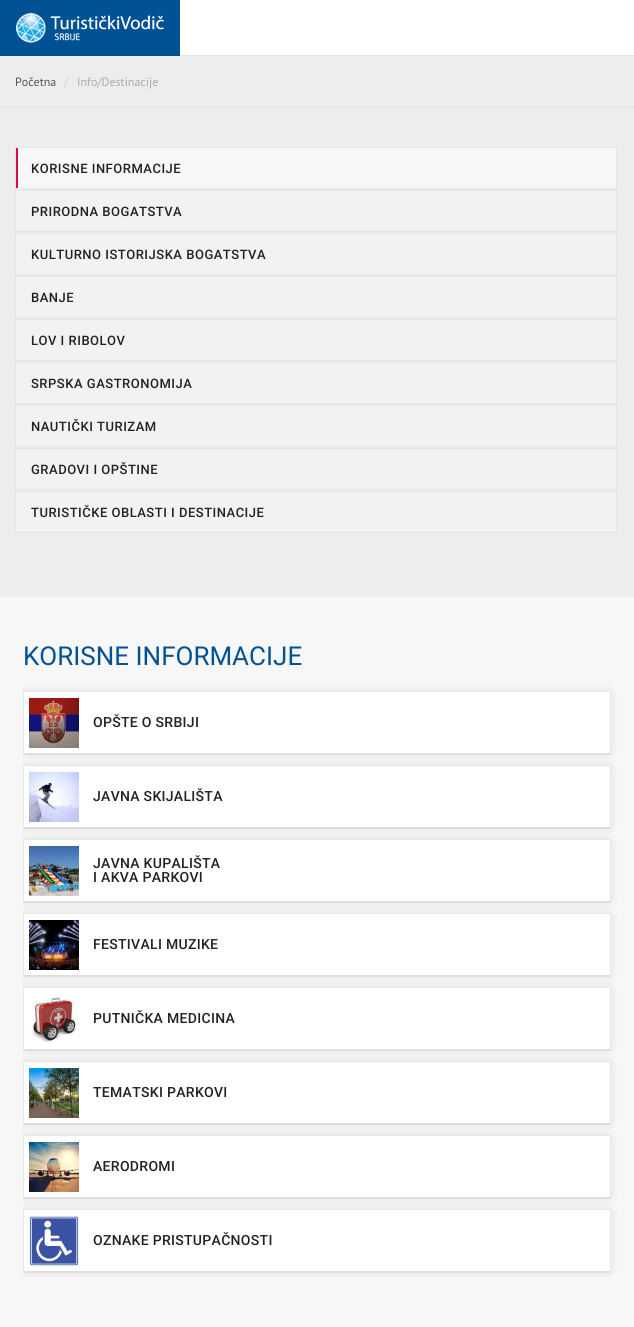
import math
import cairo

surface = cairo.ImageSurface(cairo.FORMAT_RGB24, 634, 1327)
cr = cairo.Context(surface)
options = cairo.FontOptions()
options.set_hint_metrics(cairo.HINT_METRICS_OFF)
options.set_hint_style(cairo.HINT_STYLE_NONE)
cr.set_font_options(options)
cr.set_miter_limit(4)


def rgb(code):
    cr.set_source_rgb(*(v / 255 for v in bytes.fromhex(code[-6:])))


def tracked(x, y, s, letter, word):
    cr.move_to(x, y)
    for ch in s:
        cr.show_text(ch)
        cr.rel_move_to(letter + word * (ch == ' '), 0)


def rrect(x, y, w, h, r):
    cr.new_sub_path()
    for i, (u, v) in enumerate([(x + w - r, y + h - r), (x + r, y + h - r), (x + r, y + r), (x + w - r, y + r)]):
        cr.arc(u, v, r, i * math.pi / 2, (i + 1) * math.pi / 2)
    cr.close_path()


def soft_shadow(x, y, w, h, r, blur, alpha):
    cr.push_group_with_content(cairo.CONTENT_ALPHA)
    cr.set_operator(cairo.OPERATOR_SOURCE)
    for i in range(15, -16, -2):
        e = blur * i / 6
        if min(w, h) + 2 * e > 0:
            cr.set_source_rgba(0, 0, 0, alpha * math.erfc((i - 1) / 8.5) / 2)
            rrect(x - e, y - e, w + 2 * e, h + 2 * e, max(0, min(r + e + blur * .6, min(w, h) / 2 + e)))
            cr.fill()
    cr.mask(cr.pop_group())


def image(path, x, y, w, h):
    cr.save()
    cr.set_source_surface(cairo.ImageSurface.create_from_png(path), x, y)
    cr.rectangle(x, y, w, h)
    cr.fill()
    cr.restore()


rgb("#ffffff")
cr.paint()
rgb("#005294")
cr.rectangle(0, 0, 180, 56)
cr.fill()
image("img/1.png", 16, 13, 148, 30)
for x, y, w, h, color in [
    (0, 597, 634, 730, "#f7f7f7"),
    (0, 56, 634, 50, "#ededed"),
    (180, 55, 454, 1, "#e5e5e5"),
    (0, 106, 634, 1, "#e5e5e5"),
    (0, 107, 634, 490, "#ededed"),
    (18, 148, 598, 40, "#f7f7f7"),
]:
    rgb(color)
    cr.rectangle(x, y, w, h)
    cr.fill()
cr.rectangle(15.5, 147.5, 601, 41)
rgb("#e5e5e5")
cr.set_line_width(1)
cr.stroke()
rgb("#d60d45")
cr.rectangle(16, 148, 2, 40)
cr.fill()
rgb("#f2f2f2")
cr.rectangle(15.5, 190.5, 601, 41)
cr.fill_preserve()
rgb("#e5e5e5")
cr.stroke()
rgb("#f2f2f2")
cr.rectangle(15.5, 233.5, 601, 41)
cr.fill_preserve()
rgb("#e5e5e5")
cr.stroke()
rgb("#f2f2f2")
cr.rectangle(15.5, 276.5, 601, 41)
cr.fill_preserve()
rgb("#e5e5e5")
cr.stroke()
rgb("#f2f2f2")
cr.rectangle(15.5, 319.5, 601, 41)
cr.fill_preserve()
rgb("#e5e5e5")
cr.stroke()
rgb("#f2f2f2")
cr.rectangle(15.5, 362.5, 601, 41)
cr.fill_preserve()
rgb("#e5e5e5")
cr.stroke()
rgb("#f2f2f2")
cr.rectangle(15.5, 405.5, 601, 41)
cr.fill_preserve()
rgb("#e5e5e5")
cr.stroke()
rgb("#f2f2f2")
cr.rectangle(15.5, 448.5, 601, 41)
cr.fill_preserve()
rgb("#e5e5e5")
cr.stroke()
rgb("#f2f2f2")
cr.rectangle(15.5, 491.5, 601, 41)
cr.fill_preserve()
rgb("#e5e5e5")
cr.stroke()
rgb("#000000")
soft_shadow(26, 694, 582, 58, 0, 6, 0.15)
rgb("#ffffff")
cr.rectangle(24, 692, 586, 61)
cr.fill()
rgb("#e6e6e6")
cr.rectangle(23, 691, 588, 1)
cr.fill()
cr.new_path()
cr.move_to(611, 691)
cr.line_to(611, 755)
cr.line_to(610, 753)
cr.line_to(610, 692)
cr.close_path()
cr.fill()
rgb("#dedede")
cr.new_path()
cr.move_to(611, 755)
cr.line_to(23, 755)
cr.line_to(24, 753)
cr.line_to(610, 753)
cr.close_path()
cr.fill()
rgb("#e6e6e6")
cr.new_path()
cr.move_to(23, 755)
cr.line_to(23, 691)
cr.line_to(24, 692)
cr.line_to(24, 753)
cr.close_path()
cr.fill()
rgb("#000000")
soft_shadow(26, 768, 582, 58, 0, 6, 0.15)
rgb("#ffffff")
cr.rectangle(24, 766, 586, 61)
cr.fill()
rgb("#e6e6e6")
cr.rectangle(23, 765, 588, 1)
cr.fill()
cr.new_path()
cr.move_to(611, 765)
cr.line_to(611, 829)
cr.line_to(610, 827)
cr.line_to(610, 766)
cr.close_path()
cr.fill()
rgb("#dedede")
cr.new_path()
cr.move_to(611, 829)
cr.line_to(23, 829)
cr.line_to(24, 827)
cr.line_to(610, 827)
cr.close_path()
cr.fill()
rgb("#e6e6e6")
cr.new_path()
cr.move_to(23, 829)
cr.line_to(23, 765)
cr.line_to(24, 766)
cr.line_to(24, 827)
cr.close_path()
cr.fill()
rgb("#000000")
soft_shadow(26, 842, 582, 58, 0, 6, 0.15)
rgb("#ffffff")
cr.rectangle(24, 840, 586, 61)
cr.fill()
rgb("#e6e6e6")
cr.rectangle(23, 839, 588, 1)
cr.fill()
cr.new_path()
cr.move_to(611, 839)
cr.line_to(611, 903)
cr.line_to(610, 901)
cr.line_to(610, 840)
cr.close_path()
cr.fill()
rgb("#dedede")
cr.new_path()
cr.move_to(611, 903)
cr.line_to(23, 903)
cr.line_to(24, 901)
cr.line_to(610, 901)
cr.close_path()
cr.fill()
rgb("#e6e6e6")
cr.new_path()
cr.move_to(23, 903)
cr.line_to(23, 839)
cr.line_to(24, 840)
cr.line_to(24, 901)
cr.close_path()
cr.fill()
rgb("#000000")
soft_shadow(26, 916, 582, 58, 0, 6, 0.15)
rgb("#ffffff")
cr.rectangle(24, 914, 586, 61)
cr.fill()
rgb("#e6e6e6")
cr.rectangle(23, 913, 588, 1)
cr.fill()
cr.new_path()
cr.move_to(611, 913)
cr.line_to(611, 977)
cr.line_to(610, 975)
cr.line_to(610, 914)
cr.close_path()
cr.fill()
rgb("#dedede")
cr.new_path()
cr.move_to(611, 977)
cr.line_to(23, 977)
cr.line_to(24, 975)
cr.line_to(610, 975)
cr.close_path()
cr.fill()
rgb("#e6e6e6")
cr.new_path()
cr.move_to(23, 977)
cr.line_to(23, 913)
cr.line_to(24, 914)
cr.line_to(24, 975)
cr.close_path()
cr.fill()
rgb("#000000")
soft_shadow(26, 990, 582, 58, 0, 6, 0.15)
rgb("#ffffff")
cr.rectangle(24, 988, 586, 61)
cr.fill()
rgb("#e6e6e6")
cr.rectangle(23, 987, 588, 1)
cr.fill()
cr.new_path()
cr.move_to(611, 987)
cr.line_to(611, 1051)
cr.line_to(610, 1049)
cr.line_to(610, 988)
cr.close_path()
cr.fill()
rgb("#dedede")
cr.new_path()
cr.move_to(611, 1051)
cr.line_to(23, 1051)
cr.line_to(24, 1049)
cr.line_to(610, 1049)
cr.close_path()
cr.fill()
rgb("#e6e6e6")
cr.new_path()
cr.move_to(23, 1051)
cr.line_to(23, 987)
cr.line_to(24, 988)
cr.line_to(24, 1049)
cr.close_path()
cr.fill()
rgb("#000000")
soft_shadow(26, 1064, 582, 58, 0, 6, 0.15)
rgb("#ffffff")
cr.rectangle(24, 1062, 586, 61)
cr.fill()
rgb("#e6e6e6")
cr.rectangle(23, 1061, 588, 1)
cr.fill()
cr.new_path()
cr.move_to(611, 1061)
cr.line_to(611, 1125)
cr.line_to(610, 1123)
cr.line_to(610, 1062)
cr.close_path()
cr.fill()
rgb("#dedede")
cr.new_path()
cr.move_to(611, 1125)
cr.line_to(23, 1125)
cr.line_to(24, 1123)
cr.line_to(610, 1123)
cr.close_path()
cr.fill()
rgb("#e6e6e6")
cr.new_path()
cr.move_to(23, 1125)
cr.line_to(23, 1061)
cr.line_to(24, 1062)
cr.line_to(24, 1123)
cr.close_path()
cr.fill()
rgb("#000000")
soft_shadow(26, 1138, 582, 58, 0, 6, 0.15)
rgb("#ffffff")
cr.rectangle(24, 1136, 586, 61)
cr.fill()
rgb("#e6e6e6")
cr.rectangle(23, 1135, 588, 1)
cr.fill()
cr.new_path()
cr.move_to(611, 1135)
cr.line_to(611, 1199)
cr.line_to(610, 1197)
cr.line_to(610, 1136)
cr.close_path()
cr.fill()
rgb("#dedede")
cr.new_path()
cr.move_to(611, 1199)
cr.line_to(23, 1199)
cr.line_to(24, 1197)
cr.line_to(610, 1197)
cr.close_path()
cr.fill()
rgb("#e6e6e6")
cr.new_path()
cr.move_to(23, 1199)
cr.line_to(23, 1135)
cr.line_to(24, 1136)
cr.line_to(24, 1197)
cr.close_path()
cr.fill()
rgb("#000000")
soft_shadow(26, 1212, 582, 58, 0, 6, 0.15)
rgb("#f7f7f7")
cr.rectangle(17, 690, 6, 584)
cr.fill()
image("img/2.png", 29, 698, 50, 50)
image("img/3.png", 29, 772, 50, 50)
image("img/4.png", 29, 846, 50, 50)
image("img/5.png", 29, 920, 50, 50)
image("img/6.png", 31, 997, 46, 45)
image("img/7.png", 29, 1068, 50, 50)
image("img/8.png", 29, 1142, 50, 50)
rgb("#ffffff")
cr.rectangle(24, 1210, 586, 61)
cr.fill()
rgb("#e6e6e6")
cr.rectangle(23, 1209, 588, 1)
cr.fill()
cr.new_path()
cr.move_to(611, 1209)
cr.line_to(611, 1273)
cr.line_to(610, 1271)
cr.line_to(610, 1210)
cr.close_path()
cr.fill()
rgb("#dedede")
cr.new_path()
cr.move_to(611, 1273)
cr.line_to(23, 1273)
cr.line_to(24, 1271)
cr.line_to(610, 1271)
cr.close_path()
cr.fill()
rgb("#e6e6e6")
cr.new_path()
cr.move_to(23, 1273)
cr.line_to(23, 1209)
cr.line_to(24, 1210)
cr.line_to(24, 1271)
cr.close_path()
cr.fill()
image("img/9.png", 29, 1216, 50, 50)
cr.select_font_face("PT Sans")
cr.set_font_size(12)
rgb("#555555")
cr.move_to(15, 86)
cr.show_text("Početna")
rgb("#cccccc")
cr.move_to(64, 86)
cr.show_text("/")
rgb("#aaaaaa")
cr.move_to(77, 86)
cr.show_text("Info/Destinacije")
cr.select_font_face("Roboto Medium")
cr.set_font_size(13)
rgb("#222222")
for x, y, s in [
    (31, 173, "KORISNE INFORMACIJE"),
    (31, 216, "PRIRODNA BOGATSTVA"),
    (31, 259, "KULTURNO ISTORIJSKA BOGATSTVA"),
    (31, 302, "BANJE"),
    (31, 345, "LOV I RIBOLOV"),
    (31, 388, "SRPSKA GASTRONOMIJA"),
    (31, 431, "NAUTIČKI TURIZAM"),
    (31, 474, "GRADOVI I OPŠTINE"),
    (31, 517, "TURISTIČKE OBLASTI I DESTINACIJE"),
]:
    tracked(x, y, s, 0.5, 0)
cr.select_font_face("Roboto")
cr.set_font_size(26)
rgb("#005294")
cr.move_to(23, 665)
cr.show_text("KORISNE INFORMACIJE")
cr.select_font_face("Roboto Medium")
cr.set_font_size(14)
rgb("#222222")
for x, y, s in [
    (93, 727, "OPŠTE O SRBIJI"),
    (93, 801, "JAVNA SKIJALIŠTA"),
    (93, 868, "JAVNA KUPALIŠTA"),
    (93, 882, "I AKVA PARKOVI"),
    (93, 949, "FESTIVALI MUZIKE"),
    (93, 1023, "PUTNIČKA MEDICINA"),
    (93, 1097, "TEMATSKI PARKOVI"),
    (93, 1171, "AERODROMI"),
    (93, 1245, "OZNAKE PRISTUPAČNOSTI"),
]:
    tracked(x, y, s, 0.3, 0)
surface.write_to_png("page.png")
